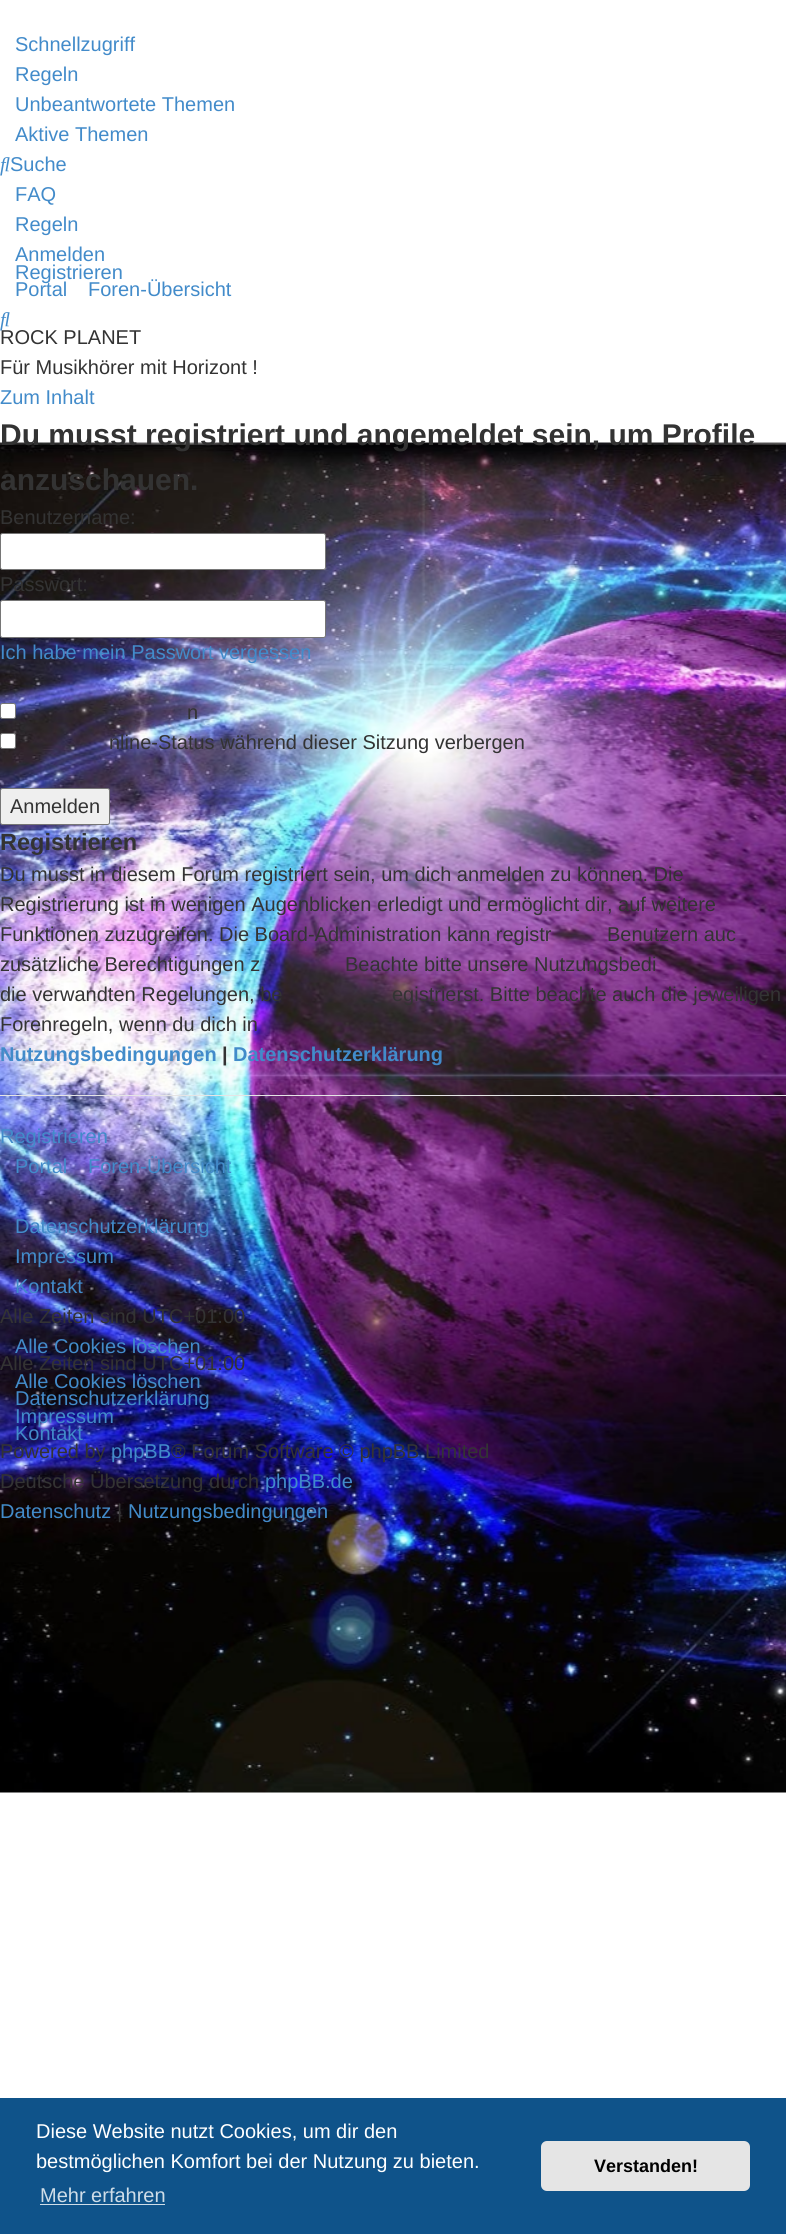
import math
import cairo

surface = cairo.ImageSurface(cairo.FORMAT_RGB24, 786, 2234)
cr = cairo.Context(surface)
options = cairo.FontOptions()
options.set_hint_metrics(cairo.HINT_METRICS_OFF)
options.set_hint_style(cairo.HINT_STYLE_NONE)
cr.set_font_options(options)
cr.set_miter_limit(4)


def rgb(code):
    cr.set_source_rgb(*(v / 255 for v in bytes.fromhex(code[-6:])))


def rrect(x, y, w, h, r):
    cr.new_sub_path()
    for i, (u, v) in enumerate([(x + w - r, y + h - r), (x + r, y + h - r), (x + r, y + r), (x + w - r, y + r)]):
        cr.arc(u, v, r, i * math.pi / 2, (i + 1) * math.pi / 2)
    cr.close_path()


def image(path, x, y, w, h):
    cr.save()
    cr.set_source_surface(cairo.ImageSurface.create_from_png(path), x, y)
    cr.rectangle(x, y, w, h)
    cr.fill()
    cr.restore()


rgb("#ffffff")
cr.paint()
image("img/1.png", 0, 442, 786, 1351)
image("img/2.png", 0, 157, 10, 19)
image("img/2.png", 0, 312, 10, 19)
rgb("#ffffff")
rrect(0.5, 533.5, 325, 36, 2)
cr.fill_preserve()
rgb("#767676")
cr.set_line_width(1)
cr.stroke()
rgb("#ffffff")
rrect(0.5, 600.5, 325, 37, 2)
cr.fill_preserve()
rgb("#767676")
cr.stroke()
rgb("#ffffff")
rrect(0.5, 703.5, 15, 15, 2)
cr.fill_preserve()
rgb("#767676")
cr.stroke()
rgb("#ffffff")
rrect(0.5, 733.5, 15, 15, 2)
cr.fill_preserve()
rgb("#767676")
cr.stroke()
rgb("#efefef")
rrect(0.5, 788.5, 109, 36, 2)
cr.fill_preserve()
rgb("#767676")
cr.stroke()
for x, y, w, h, color in [
    (0, 1095, 786, 1, "#e5e5e5"),
    (0, 2098, 786, 136, "#0f538a"),
    (40, 2204, 125, 1, "#cfdde8"),
]:
    rgb(color)
    cr.rectangle(x, y, w, h)
    cr.fill()
rgb("#e5e5e5")
rrect(541, 2141, 209, 50, 6)
cr.fill()
cr.select_font_face("Liberation Sans")
cr.set_font_size(20)
rgb("#428bca")
for x, y, s in [
    (15, 51, "Schnellzugriff"),
    (15, 81, "Regeln"),
    (15, 111, "Unbeantwortete Themen"),
    (15, 141, "Aktive Themen"),
    (10, 171, "Suche"),
    (15, 201, "FAQ"),
    (15, 231, "Regeln"),
    (15, 261, "Anmelden"),
    (15, 279, "Registrieren"),
    (15, 296, "Portal"),
    (88, 296, "Foren-Übersicht"),
]:
    cr.move_to(x, y)
    cr.show_text(s)
rgb("#333333")
cr.move_to(0, 344)
cr.show_text("ROCK PLANET")
cr.move_to(0, 374)
cr.show_text("Für Musikhörer mit Horizont !")
rgb("#428bca")
cr.move_to(0, 404)
cr.show_text("Zum Inhalt")
cr.select_font_face("Liberation Sans", cairo.FONT_SLANT_NORMAL, cairo.FONT_WEIGHT_BOLD)
cr.set_font_size(30)
rgb("#333333")
cr.move_to(0, 445)
cr.show_text("Du musst registriert und angemeldet sein, um Profile")
cr.move_to(0, 490)
cr.show_text("anzuschauen.")
cr.select_font_face("Liberation Sans")
cr.set_font_size(20)
cr.move_to(0, 524)
cr.show_text("Benutzername:")
cr.move_to(0, 591)
cr.show_text("Passwort:")
rgb("#428bca")
cr.move_to(0, 659)
cr.show_text("Ich habe mein Passwort vergessen")
rgb("#333333")
for x, y, s in [
    (187, 719, "n"),
    (109, 749, "nline-Status während dieser Sitzung verbergen"),
    (10, 813, "Anmelden"),
]:
    cr.move_to(x, y)
    cr.show_text(s)
cr.select_font_face("Liberation Sans", cairo.FONT_SLANT_NORMAL, cairo.FONT_WEIGHT_BOLD)
cr.set_font_size(23.5)
cr.move_to(0, 850)
cr.show_text("Registrieren")
cr.select_font_face("Liberation Sans")
cr.set_font_size(20)
for x, y, s in [
    (0, 881, "Du musst in diesem Forum registriert sein, um dich anmelden zu können. Die"),
    (0, 911, "Registrierung ist in wenigen Augenblicken erledigt und ermöglicht dir, auf weitere"),
    (0, 941, "Funktionen zuzugreifen. Die Board-Administration kann registr"),
    (607, 941, "Benutzern auc"),
    (0, 971, "zusätzliche Berechtigungen z"),
    (345, 971, "Beachte bitte unsere Nutzungsbedi"),
    (0, 1001, "die verwandten Regelungen, be"),
    (392, 1001, "egistrierst. Bitte beachte auch die jeweiligen"),
    (0, 1031, "Forenregeln, wenn du dich in"),
]:
    cr.move_to(x, y)
    cr.show_text(s)
cr.select_font_face("Liberation Sans", cairo.FONT_SLANT_NORMAL, cairo.FONT_WEIGHT_BOLD)
rgb("#428bca")
cr.move_to(0, 1061)
cr.show_text("Nutzungsbedingungen")
rgb("#333333")
cr.move_to(222, 1061)
cr.show_text("|")
rgb("#428bca")
cr.move_to(233, 1061)
cr.show_text("Datenschutzerklärung")
cr.select_font_face("Liberation Sans")
for x, y, s in [
    (0, 1143, "Registrieren"),
    (15, 1173, "Portal"),
    (88, 1173, "Foren-Übersicht"),
    (15, 1233, "Datenschutzerklärung"),
    (15, 1263, "Impressum"),
    (15, 1293, "Kontakt"),
]:
    cr.move_to(x, y)
    cr.show_text(s)
rgb("#333333")
cr.move_to(0, 1323)
cr.show_text("Alle Zeiten sind UTC+01:00")
rgb("#428bca")
cr.move_to(15, 1353)
cr.show_text("Alle Cookies löschen")
rgb("#333333")
cr.move_to(0, 1370)
cr.show_text("Alle Zeiten sind UTC+01:00")
rgb("#428bca")
for x, y, s in [
    (15, 1388, "Alle Cookies löschen"),
    (15, 1405, "Datenschutzerklärung"),
    (15, 1423, "Impressum"),
    (15, 1440, "Kontakt"),
]:
    cr.move_to(x, y)
    cr.show_text(s)
rgb("#333333")
cr.move_to(0, 1458)
cr.show_text("Powered by")
rgb("#428bca")
cr.move_to(111, 1458)
cr.show_text("phpBB")
rgb("#333333")
cr.move_to(171, 1458)
cr.show_text("® Forum Software © phpBB Limited")
cr.move_to(0, 1488)
cr.show_text("Deutsche Übersetzung durch")
rgb("#428bca")
cr.move_to(265, 1488)
cr.show_text("phpBB.de")
cr.move_to(0, 1518)
cr.show_text("Datenschutz")
rgb("#333333")
cr.move_to(117, 1518)
cr.show_text("|")
rgb("#428bca")
cr.move_to(128, 1518)
cr.show_text("Nutzungsbedingungen")
rgb("#ffffff")
cr.move_to(36, 2138)
cr.show_text("Diese Website nutzt Cookies, um dir den")
cr.move_to(36, 2168)
cr.show_text("bestmöglichen Komfort bei der Nutzung zu bieten.")
rgb("#cfdde8")
cr.move_to(40, 2202)
cr.show_text("Mehr erfahren")
cr.select_font_face("Liberation Sans", cairo.FONT_SLANT_NORMAL, cairo.FONT_WEIGHT_BOLD)
cr.set_font_size(18)
rgb("#000000")
cr.move_to(594, 2172)
cr.show_text("Verstanden!")
surface.write_to_png("page.png")
